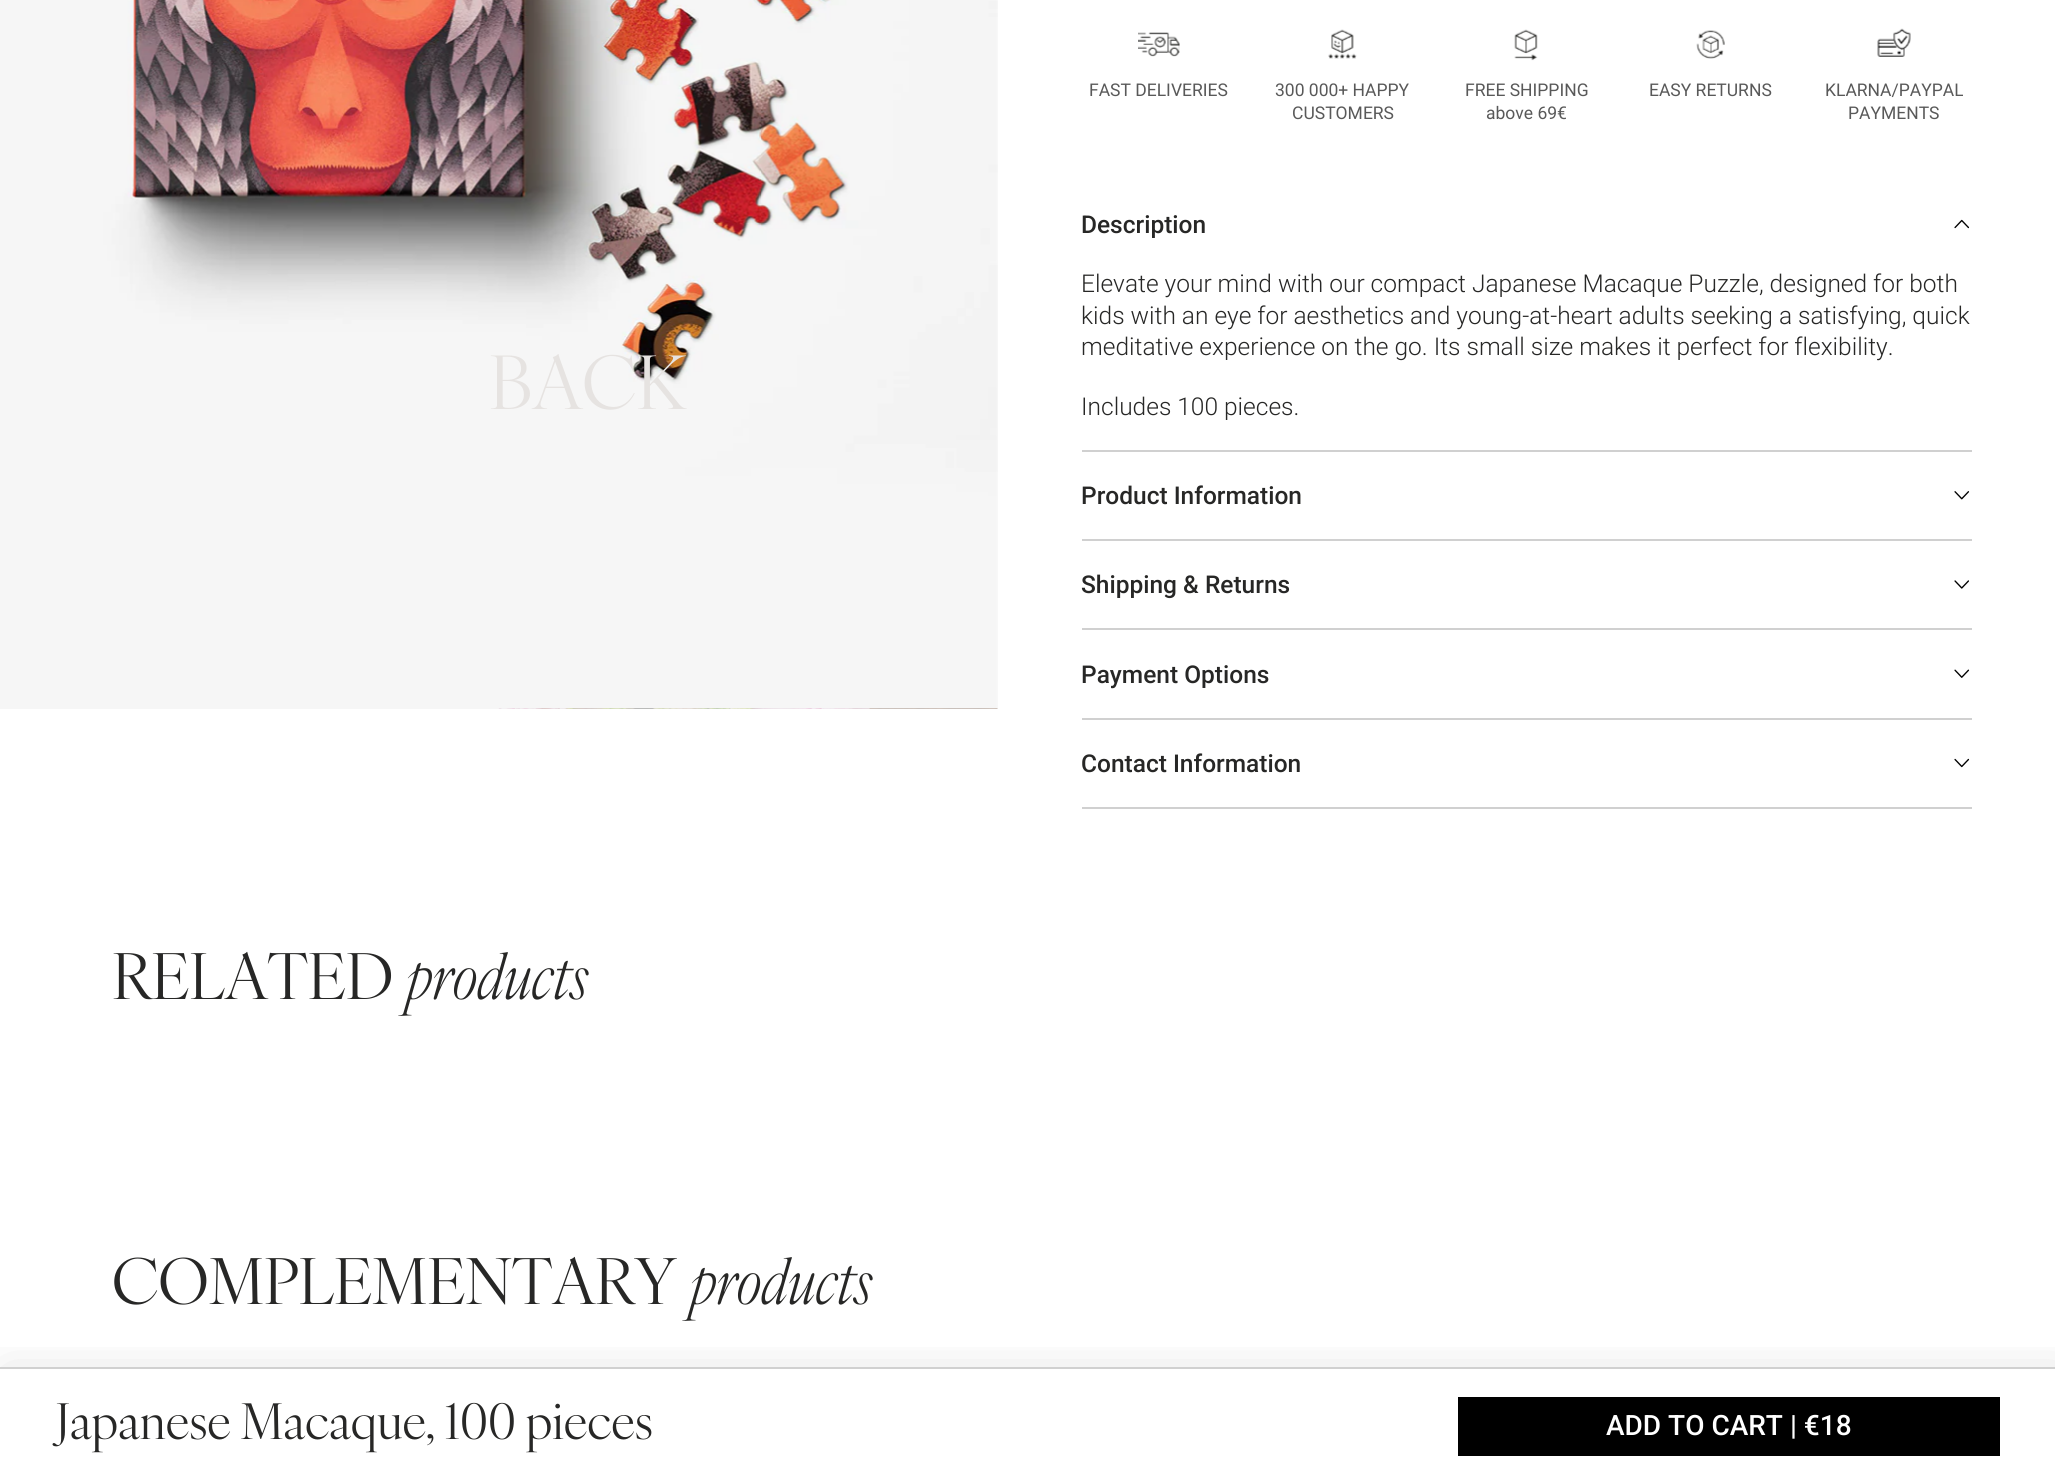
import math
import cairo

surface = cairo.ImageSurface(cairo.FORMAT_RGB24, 2055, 1483)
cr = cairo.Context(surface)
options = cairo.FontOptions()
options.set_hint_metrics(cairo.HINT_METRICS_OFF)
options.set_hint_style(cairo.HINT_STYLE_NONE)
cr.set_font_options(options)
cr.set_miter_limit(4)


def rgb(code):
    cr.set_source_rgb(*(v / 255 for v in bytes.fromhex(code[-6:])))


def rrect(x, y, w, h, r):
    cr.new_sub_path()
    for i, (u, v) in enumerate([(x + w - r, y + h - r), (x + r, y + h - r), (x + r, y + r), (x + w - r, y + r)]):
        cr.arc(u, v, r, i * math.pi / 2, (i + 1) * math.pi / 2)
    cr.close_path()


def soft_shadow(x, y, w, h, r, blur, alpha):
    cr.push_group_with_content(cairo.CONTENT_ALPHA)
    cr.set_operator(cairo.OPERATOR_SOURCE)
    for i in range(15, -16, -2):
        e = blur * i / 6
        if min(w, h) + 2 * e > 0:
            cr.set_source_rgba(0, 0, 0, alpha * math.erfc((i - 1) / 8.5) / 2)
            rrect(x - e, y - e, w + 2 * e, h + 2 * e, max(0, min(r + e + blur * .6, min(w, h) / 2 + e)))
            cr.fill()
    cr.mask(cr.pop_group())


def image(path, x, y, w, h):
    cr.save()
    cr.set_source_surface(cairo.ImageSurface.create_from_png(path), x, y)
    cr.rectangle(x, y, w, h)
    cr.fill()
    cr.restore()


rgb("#ffffff")
cr.paint()
image("img/1.png", 0, 0, 998, 709)
image("img/2.png", 498, 708, 500, 1)
image("img/3.png", 1138, 32, 42, 25)
image("img/4.png", 1328, 29, 29, 30)
image("img/5.png", 1514, 29, 24, 32)
image("img/6.png", 1696, 30, 29, 29)
image("img/7.png", 1877, 28, 34, 29)
rgb("#d0d0d0")
cr.rectangle(1082, 450, 890, 2)
cr.fill()
image("img/8.png", 1954, 219, 16, 10)
cr.rectangle(1082, 539, 890, 2)
cr.fill()
image("img/9.png", 1954, 491, 16, 9)
cr.rectangle(1082, 628, 890, 2)
cr.fill()
image("img/10.png", 1954, 580, 15, 9)
cr.rectangle(1082, 718, 890, 2)
cr.fill()
image("img/11.png", 1954, 669, 16, 9)
cr.rectangle(1082, 807, 890, 2)
cr.fill()
image("img/12.png", 1954, 758, 16, 10)
cr.save()
cr.rectangle(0, 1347, 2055, 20)
cr.clip()
rgb("#000000")
soft_shadow(5, 1372, 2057, 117, 0, 26, 0.12)
cr.restore()
cr.rectangle(0, 1367, 2055, 2)
cr.fill()
rgb("#000000")
cr.rectangle(1458, 1397, 542, 59)
cr.fill()
cr.select_font_face("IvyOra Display")
cr.set_font_size(73.5)
rgb("#e6e3e1")
cr.move_to(489, 409)
cr.show_text("BACK")
cr.select_font_face("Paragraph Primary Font")
cr.set_font_size(17.5)
rgb("#595959")
for x, y, s in [
    (1089, 96, "FAST DELIVERIES"),
    (1275, 96, "300 000+ HAPPY"),
    (1292, 119, "CUSTOMERS"),
    (1465, 96, "FREE SHIPPING"),
    (1486, 119, "above 69€"),
    (1649, 96, "EASY RETURNS"),
    (1825, 96, "KLARNA/PAYPAL"),
    (1848, 119, "PAYMENTS"),
]:
    cr.move_to(x, y)
    cr.show_text(s)
cr.select_font_face("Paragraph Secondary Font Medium")
cr.set_font_size(24.5)
rgb("#272726")
cr.move_to(1081, 233)
cr.show_text("Description")
cr.select_font_face("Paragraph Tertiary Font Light")
for x, y, s in [
    (1081, 292, "Elevate your mind with our compact Japanese Macaque Puzzle, designed for both"),
    (1081, 324, "kids with an eye for aesthetics and young-at-heart adults seeking a satisfying, quick"),
    (1081, 355, "meditative experience on the go. Its small size makes it perfect for flexibility."),
    (1081, 415, "Includes 100 pieces."),
]:
    cr.move_to(x, y)
    cr.show_text(s)
cr.select_font_face("Paragraph Secondary Font Medium")
for x, y, s in [
    (1081, 504, "Product Information"),
    (1081, 593, "Shipping & Returns"),
    (1081, 683, "Payment Options"),
    (1081, 772, "Contact Information"),
]:
    cr.move_to(x, y)
    cr.show_text(s)
cr.select_font_face("IvyOra Display")
cr.set_font_size(49)
cr.move_to(56, 1439)
cr.show_text("Japanese Macaque, 100 pieces")
cr.select_font_face("Paragraph Secondary Font Medium")
cr.set_font_size(28)
rgb("#ffffff")
cr.move_to(1606, 1435)
cr.show_text("ADD TO CART | €18")
cr.select_font_face("IvyOra Display")
cr.set_font_size(63)
rgb("#272726")
cr.move_to(112, 999)
cr.show_text("RELATED")
cr.select_font_face("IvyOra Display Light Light", cairo.FONT_SLANT_ITALIC)
cr.move_to(406, 999)
cr.show_text("products")
cr.select_font_face("IvyOra Display")
cr.move_to(112, 1304)
cr.show_text("COMPLEMENTARY")
cr.select_font_face("IvyOra Display Light Light", cairo.FONT_SLANT_ITALIC)
cr.move_to(690, 1304)
cr.show_text("products")
surface.write_to_png("page.png")
